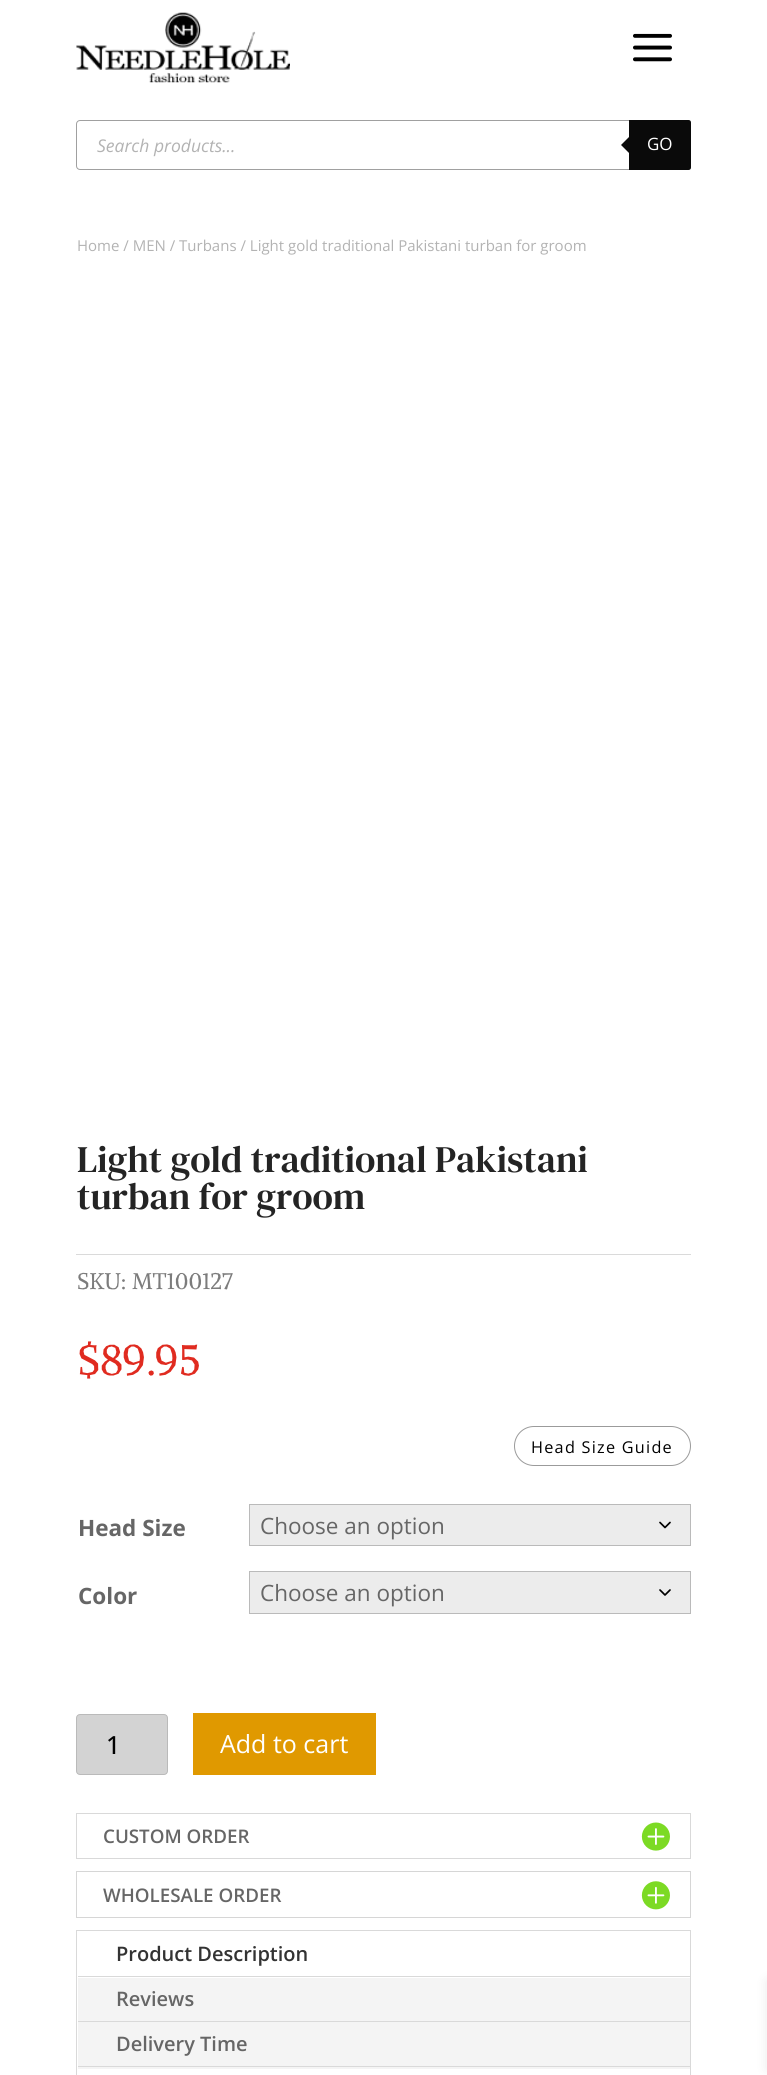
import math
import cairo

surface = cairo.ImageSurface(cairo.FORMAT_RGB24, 767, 2075)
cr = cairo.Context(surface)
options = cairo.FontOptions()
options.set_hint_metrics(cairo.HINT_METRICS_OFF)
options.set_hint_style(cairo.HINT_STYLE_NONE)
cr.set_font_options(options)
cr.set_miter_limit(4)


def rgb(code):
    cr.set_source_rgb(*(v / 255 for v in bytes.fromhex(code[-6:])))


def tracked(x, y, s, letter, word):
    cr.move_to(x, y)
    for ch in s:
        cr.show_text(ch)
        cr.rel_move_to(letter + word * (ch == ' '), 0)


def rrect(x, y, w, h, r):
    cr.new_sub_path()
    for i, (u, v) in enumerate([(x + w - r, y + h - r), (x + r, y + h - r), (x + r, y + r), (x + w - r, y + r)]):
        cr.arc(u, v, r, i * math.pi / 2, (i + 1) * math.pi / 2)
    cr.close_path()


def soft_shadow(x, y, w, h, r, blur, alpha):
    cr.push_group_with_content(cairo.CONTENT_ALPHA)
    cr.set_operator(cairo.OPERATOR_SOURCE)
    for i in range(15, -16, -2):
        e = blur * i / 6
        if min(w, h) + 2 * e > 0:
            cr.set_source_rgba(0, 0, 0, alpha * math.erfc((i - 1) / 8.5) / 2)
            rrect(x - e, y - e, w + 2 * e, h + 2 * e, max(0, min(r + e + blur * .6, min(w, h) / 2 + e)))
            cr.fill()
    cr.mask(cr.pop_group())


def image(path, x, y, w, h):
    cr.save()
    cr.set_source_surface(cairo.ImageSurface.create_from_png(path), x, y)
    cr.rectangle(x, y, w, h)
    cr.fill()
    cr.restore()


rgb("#ffffff")
cr.paint()
image("img/1.png", 76, 12, 214, 71)
image("img/2.png", 633, 33, 39, 29)
rrect(76.5, 120.5, 614, 49, 3.5)
rgb("#a0a0a0")
cr.set_line_width(1)
cr.stroke()
rgb("#0a0a0a")
cr.new_path()
cr.move_to(629, 120)
cr.line_to(688.5, 120)
cr.curve_to(690, 120, 691, 121, 691, 122.5)
cr.line_to(691, 167.5)
cr.curve_to(691, 169, 690, 170, 688.5, 170)
cr.line_to(629, 170)
cr.close_path()
cr.fill()
cr.new_path()
cr.move_to(631, 135)
cr.line_to(631, 155)
cr.line_to(621, 145)
cr.close_path()
cr.fill()
rgb("#dadada")
cr.rectangle(76, 1254, 615, 1)
cr.fill()
rrect(514.5, 1426.5, 176, 39, 19.5)
rgb("#9b9b9b")
cr.stroke()
rgb("#ececec")
cr.rectangle(250, 1505, 440, 40)
cr.fill()
cr.new_path()
cr.move_to(660, 1522.5)
cr.line_to(665, 1527.5)
cr.line_to(670, 1522.5)
rgb("#000000")
cr.set_line_width(1.7)
cr.set_line_cap(cairo.LINE_CAP_ROUND)
cr.set_line_join(cairo.LINE_JOIN_ROUND)
cr.stroke()
cr.rectangle(249.5, 1504.5, 441, 41)
rgb("#bababa")
cr.set_line_width(1)
cr.set_line_cap(cairo.LINE_CAP_BUTT)
cr.set_line_join(cairo.LINE_JOIN_MITER)
cr.stroke()
rgb("#ececec")
cr.rectangle(250, 1572, 440, 41)
cr.fill()
cr.new_path()
cr.move_to(660, 1590)
cr.line_to(665, 1595)
cr.line_to(670, 1590)
rgb("#000000")
cr.set_line_width(1.7)
cr.set_line_cap(cairo.LINE_CAP_ROUND)
cr.set_line_join(cairo.LINE_JOIN_ROUND)
cr.stroke()
cr.rectangle(249.5, 1571.5, 441, 42)
rgb("#bababa")
cr.set_line_width(1)
cr.set_line_cap(cairo.LINE_CAP_BUTT)
cr.set_line_join(cairo.LINE_JOIN_MITER)
cr.stroke()
rgb("#d3d3d3")
rrect(76.5, 1714.5, 91, 60, 3.5)
cr.fill_preserve()
rgb("#bababa")
cr.stroke()
rgb("#e09900")
cr.rectangle(193, 1713, 183, 62)
cr.fill()
cr.rectangle(76.5, 1813.5, 614, 45)
rgb("#d9d9d9")
cr.stroke()
image("img/3.png", 641, 1822, 29, 29)
cr.rectangle(76.5, 1871.5, 614, 46)
rgb("#d6d6d6")
cr.stroke()
image("img/4.png", 641, 1881, 29, 29)
cr.rectangle(76.5, 1930.5, 614, 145)
rgb("#d9d9d9")
cr.stroke()
for x, y, w, h, color in [
    (78, 1978, 612, 91, "#f4f4f4"),
    (78, 1976, 612, 1, "#d9d9d9"),
    (78, 2021, 612, 1, "#d9d9d9"),
    (78, 2066, 612, 1, "#d9d9d9"),
]:
    rgb(color)
    cr.rectangle(x, y, w, h)
    cr.fill()
rgb("#000000")
soft_shadow(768, 1981, 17, 88, 0, 6, 0.1)
cr.select_font_face("Open Sans", cairo.FONT_SLANT_ITALIC)
cr.set_font_size(17.5)
rgb("#b3b3b3")
cr.move_to(97, 152)
cr.show_text("Search products...")
cr.select_font_face("Open Sans")
cr.set_font_size(17)
rgb("#ffffff")
cr.move_to(647, 150)
cr.show_text("GO")
cr.set_font_size(15)
rgb("#b3b3b3")
cr.move_to(77, 251)
cr.show_text("Home / MEN / Turbans / Light gold traditional Pakistani turban for groom")
cr.select_font_face("DM Serif Text")
cr.set_font_size(37.5)
rgb("#242424")
cr.move_to(77, 1172)
cr.show_text("Light gold traditional Pakistani")
cr.move_to(77, 1209)
cr.show_text("turban for groom")
cr.select_font_face("Alike Angular")
cr.set_font_size(22.5)
rgb("#7c7c7c")
cr.move_to(77, 1289)
cr.show_text("SKU: MT100127")
cr.set_font_size(42.5)
rgb("#e02b20")
cr.move_to(77, 1375)
cr.show_text("$89.95")
cr.select_font_face("Open Sans")
cr.set_font_size(16.25)
rgb("#000000")
tracked(531, 1453, "Head Size Guide", 1.25, 0)
cr.select_font_face("Open Sans", cairo.FONT_SLANT_NORMAL, cairo.FONT_WEIGHT_BOLD)
cr.set_font_size(22.5)
rgb("#666666")
cr.move_to(78, 1536)
cr.show_text("Head Size")
cr.select_font_face("Open Sans")
cr.move_to(260, 1534)
cr.show_text("Choose an option")
cr.select_font_face("Open Sans", cairo.FONT_SLANT_NORMAL, cairo.FONT_WEIGHT_BOLD)
cr.move_to(78, 1604)
cr.show_text("Color")
cr.select_font_face("Open Sans")
cr.move_to(260, 1601)
cr.show_text("Choose an option")
cr.select_font_face("Open Sans Medium")
cr.set_font_size(25)
rgb("#000000")
cr.move_to(106, 1754)
cr.show_text("1")
cr.select_font_face("Open Sans")
rgb("#ffffff")
cr.move_to(220, 1753)
cr.show_text("Add to cart")
cr.select_font_face("Open Sans SemiBold")
cr.set_font_size(18.75)
rgb("#666666")
cr.move_to(103, 1843)
cr.show_text("CUSTOM ORDER")
cr.move_to(103, 1902)
cr.show_text("WHOLESALE ORDER")
cr.set_font_size(20)
rgb("#333333")
cr.move_to(116, 1961)
cr.show_text("Product Description")
rgb("#666666")
cr.move_to(116, 2006)
cr.show_text("Reviews")
cr.move_to(116, 2051)
cr.show_text("Delivery Time")
surface.write_to_png("page.png")
